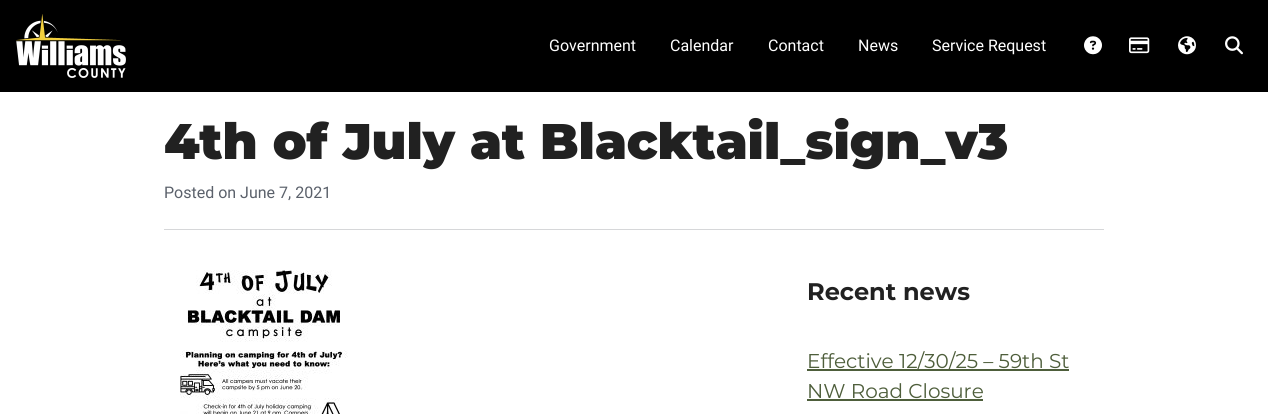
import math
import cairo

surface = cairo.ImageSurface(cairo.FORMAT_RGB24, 1268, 414)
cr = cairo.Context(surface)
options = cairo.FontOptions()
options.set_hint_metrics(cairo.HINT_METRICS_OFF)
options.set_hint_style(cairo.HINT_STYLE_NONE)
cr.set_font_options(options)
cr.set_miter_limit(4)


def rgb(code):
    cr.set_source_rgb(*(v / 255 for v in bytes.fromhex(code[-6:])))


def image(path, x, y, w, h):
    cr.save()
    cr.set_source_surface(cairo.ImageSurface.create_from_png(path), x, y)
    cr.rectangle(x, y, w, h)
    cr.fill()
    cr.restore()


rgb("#ffffff")
cr.paint()
rgb("#000000")
cr.rectangle(0, 0, 1268, 92)
cr.fill()
image("img/1.png", 16, 14, 110, 64)
image("img/2.png", 1084, 36, 18, 19)
image("img/3.png", 1129, 37, 21, 17)
image("img/4.png", 1178, 36, 18, 19)
image("img/5.png", 1225, 36, 18, 19)
rgb("#d6d7d9")
cr.rectangle(164, 229, 940, 1)
cr.fill()
image("img/6.png", 180, 270, 168, 144)
rgb("#4e5e3b")
cr.rectangle(807, 369, 262, 2)
cr.fill()
cr.rectangle(807, 399, 176, 2)
cr.fill()
cr.select_font_face("Roboto")
cr.set_font_size(16)
rgb("#ffffff")
for x, y, s in [
    (549, 51, "Government"),
    (670, 51, "Calendar"),
    (768, 51, "Contact"),
    (858, 51, "News"),
    (932, 51, "Service Request"),
]:
    cr.move_to(x, y)
    cr.show_text(s)
cr.select_font_face("Montserrat Black")
cr.set_font_size(50)
rgb("#212121")
cr.move_to(164, 159)
cr.show_text("4th of July at Blacktail_sign_v3")
cr.select_font_face("Roboto")
cr.set_font_size(16)
rgb("#5b616b")
cr.move_to(164, 198)
cr.show_text("Posted on June 7, 2021")
cr.select_font_face("Montserrat", cairo.FONT_SLANT_NORMAL, cairo.FONT_WEIGHT_BOLD)
cr.set_font_size(24)
rgb("#212121")
cr.move_to(807, 300)
cr.show_text("Recent news")
cr.select_font_face("Montserrat")
cr.set_font_size(20)
rgb("#4e5e3b")
cr.move_to(807, 368)
cr.show_text("Effective 12/30/25 – 59th St")
cr.move_to(807, 398)
cr.show_text("NW Road Closure")
surface.write_to_png("page.png")
